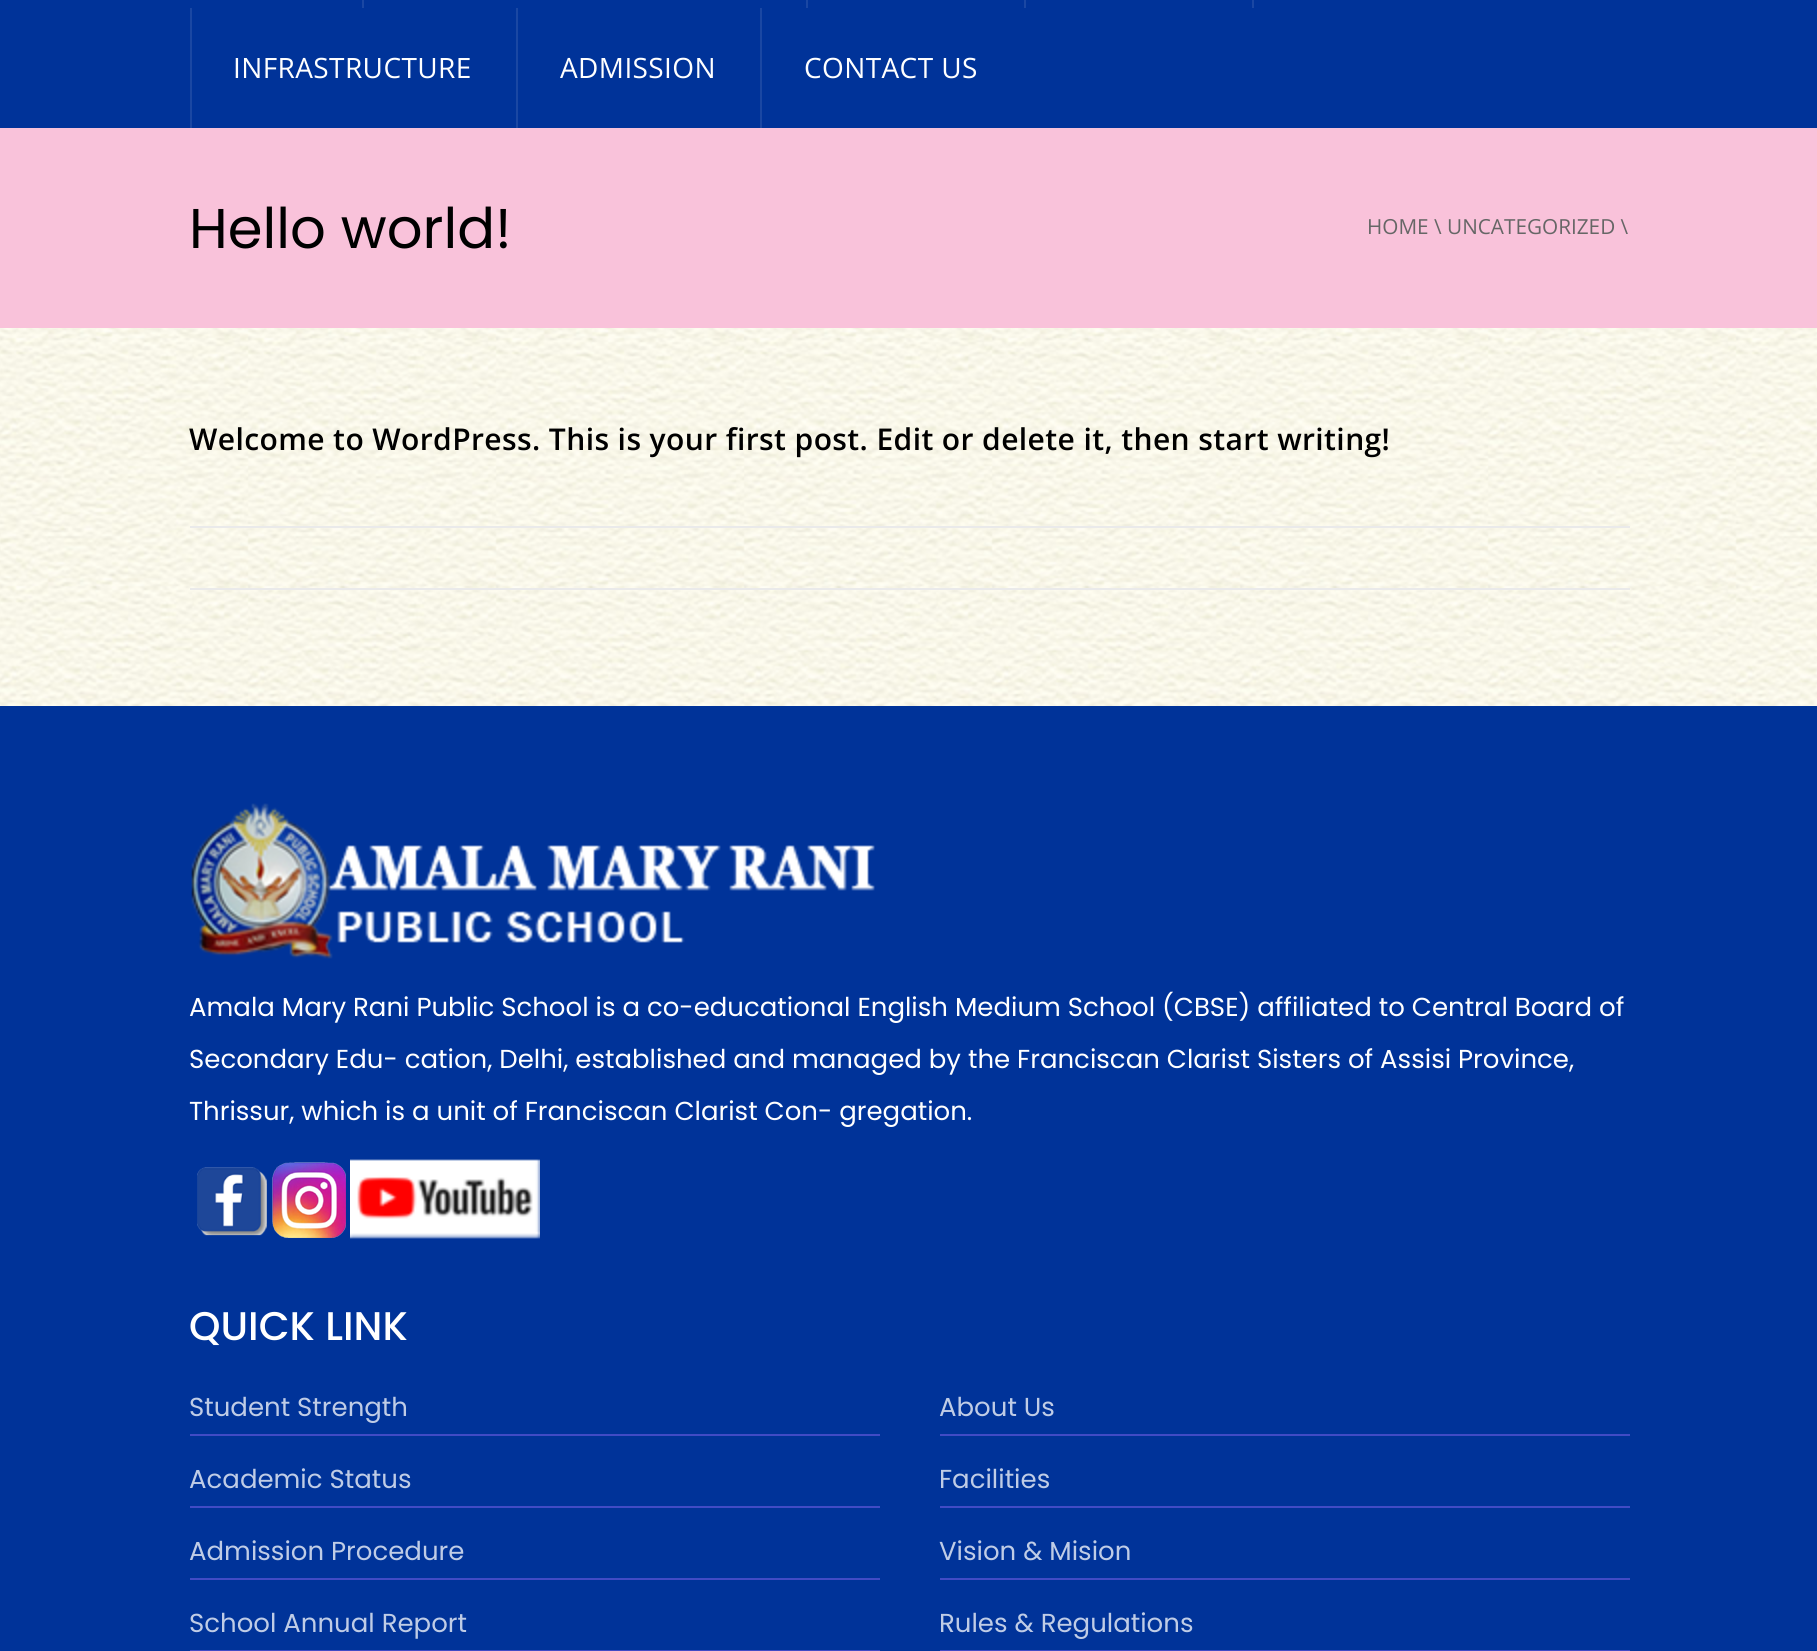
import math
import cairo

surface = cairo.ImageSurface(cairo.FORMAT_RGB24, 1817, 1651)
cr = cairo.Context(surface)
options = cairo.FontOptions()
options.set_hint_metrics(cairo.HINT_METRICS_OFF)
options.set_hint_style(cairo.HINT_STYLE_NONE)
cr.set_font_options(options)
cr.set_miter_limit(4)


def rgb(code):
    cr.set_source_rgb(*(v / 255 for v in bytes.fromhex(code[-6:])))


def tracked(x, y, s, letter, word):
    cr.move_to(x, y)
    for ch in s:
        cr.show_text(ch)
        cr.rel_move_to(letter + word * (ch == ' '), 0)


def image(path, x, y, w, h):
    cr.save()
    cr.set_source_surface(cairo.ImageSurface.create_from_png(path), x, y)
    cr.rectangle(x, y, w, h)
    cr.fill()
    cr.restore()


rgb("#ffffff")
cr.paint()
image("img/1.png", 0, 328, 1817, 378)
for x, y, w, h, color in [
    (0, 0, 1817, 128, "#003399"),
    (362, 0, 2, 8, "#1a47a3"),
    (806, 0, 2, 8, "#1a47a3"),
    (1024, 0, 2, 8, "#1a47a3"),
    (1252, 0, 2, 8, "#1a47a3"),
    (190, 8, 2, 120, "#1a47a3"),
    (516, 8, 2, 120, "#1a47a3"),
    (760, 8, 2, 120, "#1a47a3"),
    (0, 128, 1817, 200, "#f9c2da"),
    (190, 526, 1440, 2, "#eaeaea"),
    (190, 588, 1440, 2, "#eaeaea"),
    (0, 706, 1817, 945, "#003399"),
]:
    rgb(color)
    cr.rectangle(x, y, w, h)
    cr.fill()
image("img/2.png", 191, 803, 684, 156)
image("img/3.png", 197, 1167, 70, 69)
image("img/4.png", 272, 1162, 74, 76)
image("img/5.png", 350, 1159, 190, 80)
for x, y, w, h, color in [
    (190, 1434, 690, 2, "#414bc5"),
    (190, 1506, 690, 2, "#414bc5"),
    (190, 1578, 690, 2, "#414bc5"),
    (190, 1650, 690, 1, "#414bc5"),
    (940, 1434, 690, 2, "#414bc5"),
    (940, 1506, 690, 2, "#414bc5"),
    (940, 1578, 690, 2, "#414bc5"),
    (940, 1650, 690, 1, "#414bc5"),
]:
    rgb(color)
    cr.rectangle(x, y, w, h)
    cr.fill()
cr.select_font_face("Open Sans")
cr.set_font_size(28)
rgb("#ffffff")
for x, y, s in [
    (233, 78, "INFRASTRUCTURE"),
    (560, 78, "ADMISSION"),
    (804, 78, "CONTACT US"),
]:
    tracked(x, y, s, 0.4, 0)
cr.select_font_face("Poppins")
cr.set_font_size(56)
rgb("#000000")
cr.move_to(189, 248)
cr.show_text("Hello world!")
cr.select_font_face("Open Sans")
cr.set_font_size(20.75)
rgb("#666666")
cr.move_to(1367, 234)
cr.show_text("HOME \\ UNCATEGORIZED \\")
cr.select_font_face("Open Sans SemiBold")
cr.set_font_size(30)
rgb("#000000")
tracked(189, 450, "Welcome to WordPress. This is your first post. Edit or delete it, then start writing!", 0.4, 0)
cr.select_font_face("Poppins")
cr.set_font_size(26)
rgb("#ffffff")
for x, y, s in [
    (189, 1016, "Amala Mary Rani Public School is a co-educational English Medium School (CBSE) affiliated to Central Board of"),
    (189, 1068, "Secondary Edu- cation, Delhi, established and managed by the Franciscan Clarist Sisters of Assisi Province,"),
    (189, 1120, "Thrissur, which is a unit of Franciscan Clarist Con- gregation."),
]:
    cr.move_to(x, y)
    cr.show_text(s)
cr.select_font_face("Poppins Medium")
cr.set_font_size(40)
cr.move_to(189, 1340)
cr.show_text("QUICK LINK")
cr.select_font_face("Poppins")
cr.set_font_size(26)
rgb("#bfcce6")
for x, y, s in [
    (189, 1416, "Student Strength"),
    (189, 1488, "Academic Status"),
    (189, 1560, "Admission Procedure"),
    (189, 1632, "School Annual Report"),
    (939, 1416, "About Us"),
    (939, 1488, "Facilities"),
    (939, 1560, "Vision & Mision"),
    (939, 1632, "Rules & Regulations"),
]:
    cr.move_to(x, y)
    cr.show_text(s)
surface.write_to_png("page.png")
